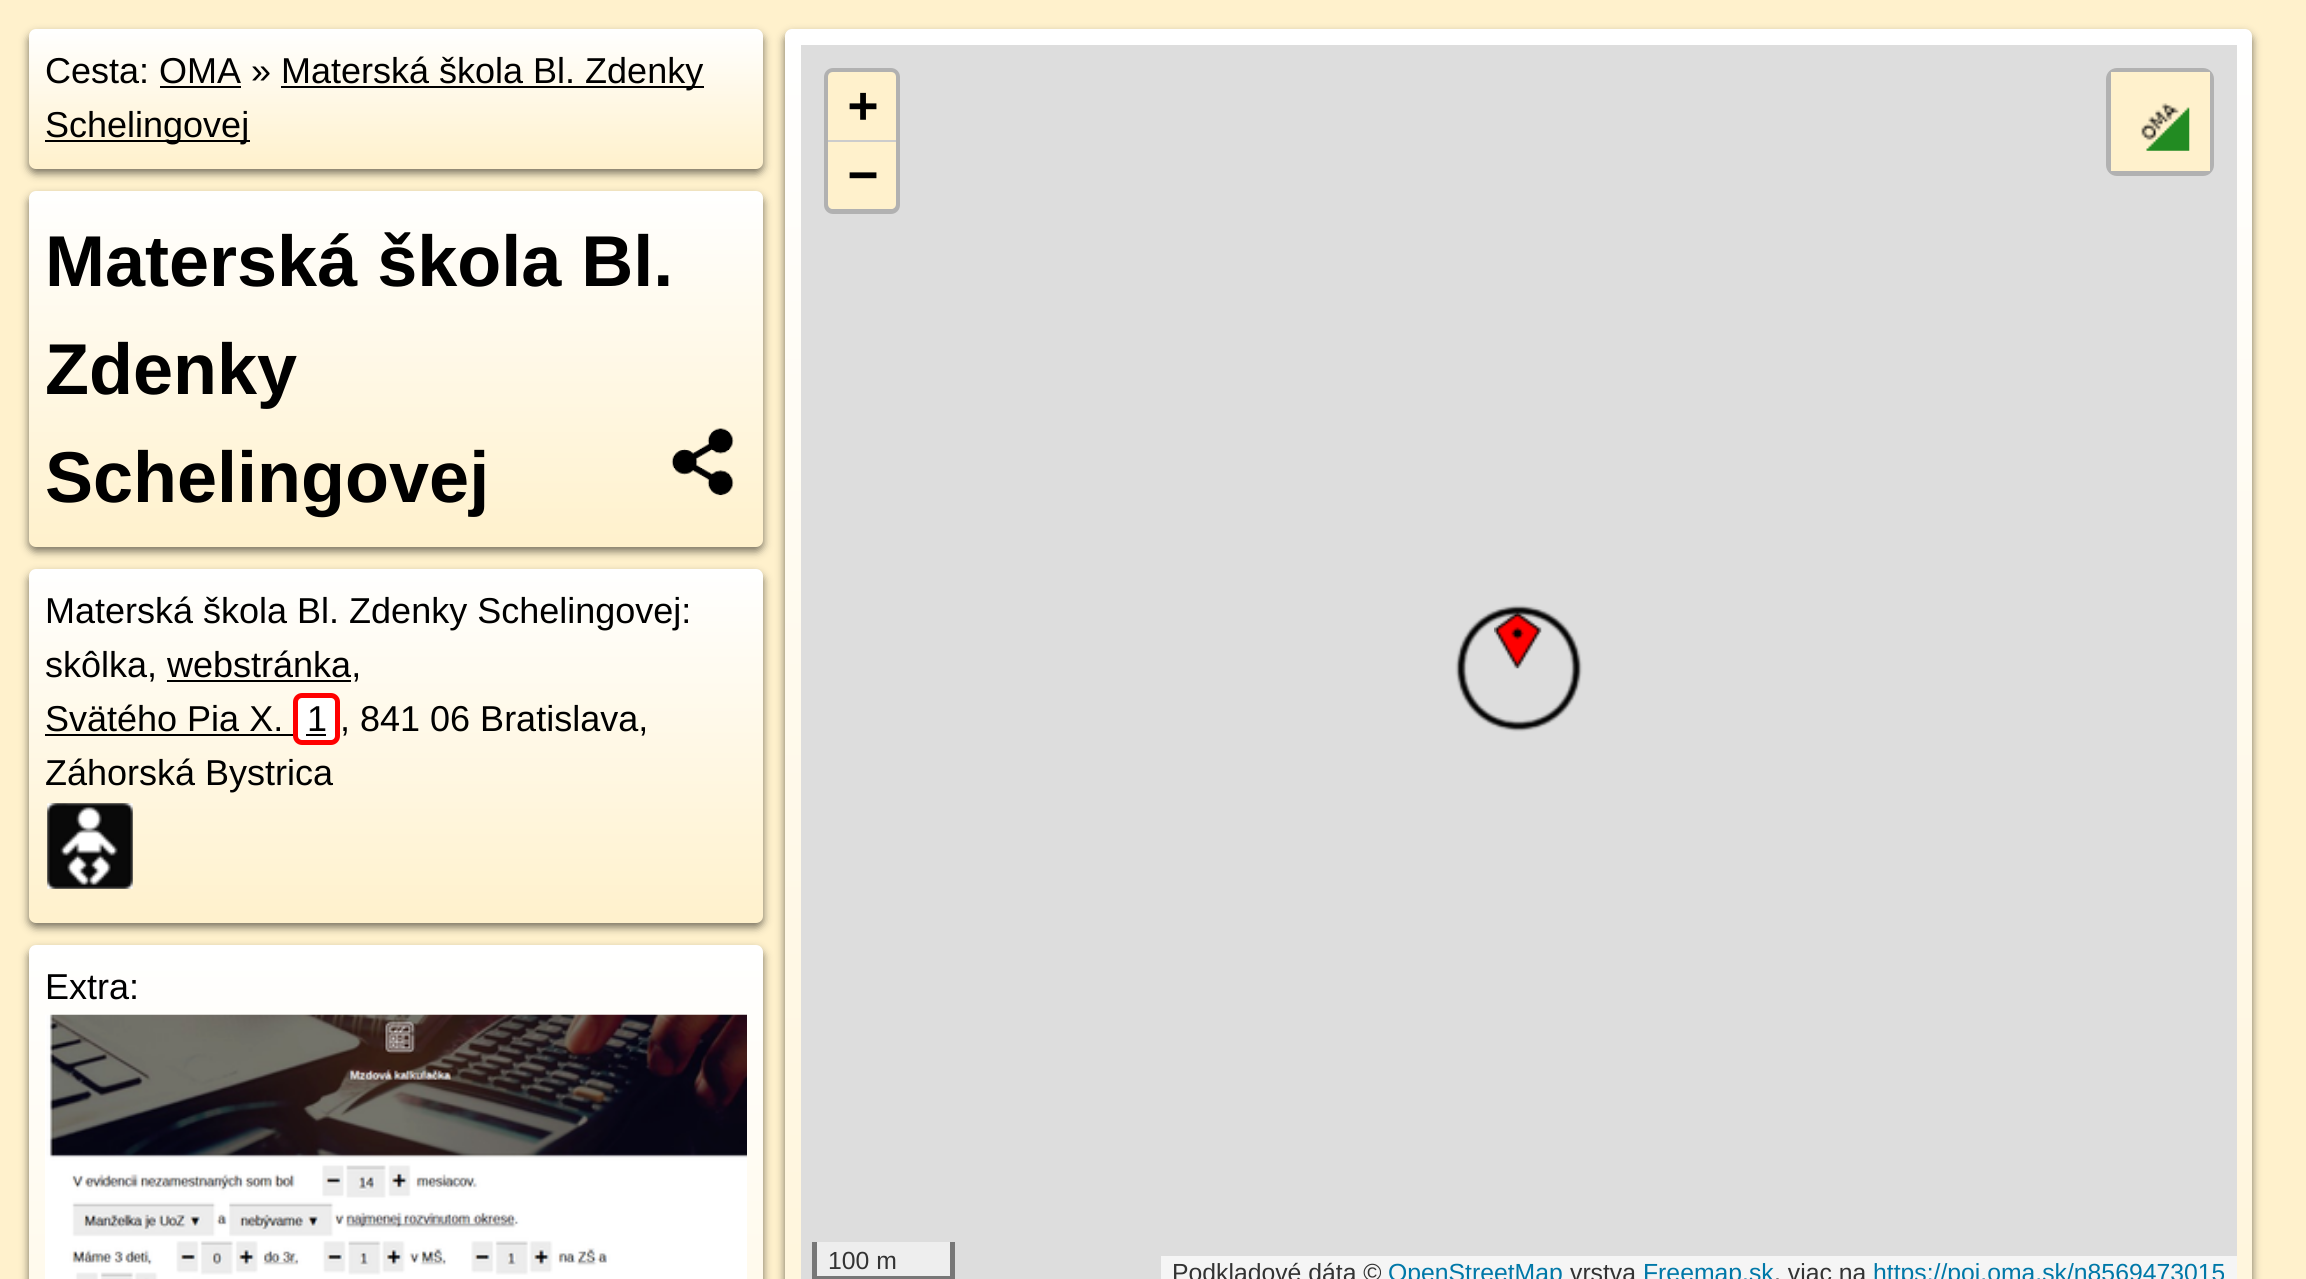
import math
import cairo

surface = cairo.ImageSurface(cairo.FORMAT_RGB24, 2306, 1279)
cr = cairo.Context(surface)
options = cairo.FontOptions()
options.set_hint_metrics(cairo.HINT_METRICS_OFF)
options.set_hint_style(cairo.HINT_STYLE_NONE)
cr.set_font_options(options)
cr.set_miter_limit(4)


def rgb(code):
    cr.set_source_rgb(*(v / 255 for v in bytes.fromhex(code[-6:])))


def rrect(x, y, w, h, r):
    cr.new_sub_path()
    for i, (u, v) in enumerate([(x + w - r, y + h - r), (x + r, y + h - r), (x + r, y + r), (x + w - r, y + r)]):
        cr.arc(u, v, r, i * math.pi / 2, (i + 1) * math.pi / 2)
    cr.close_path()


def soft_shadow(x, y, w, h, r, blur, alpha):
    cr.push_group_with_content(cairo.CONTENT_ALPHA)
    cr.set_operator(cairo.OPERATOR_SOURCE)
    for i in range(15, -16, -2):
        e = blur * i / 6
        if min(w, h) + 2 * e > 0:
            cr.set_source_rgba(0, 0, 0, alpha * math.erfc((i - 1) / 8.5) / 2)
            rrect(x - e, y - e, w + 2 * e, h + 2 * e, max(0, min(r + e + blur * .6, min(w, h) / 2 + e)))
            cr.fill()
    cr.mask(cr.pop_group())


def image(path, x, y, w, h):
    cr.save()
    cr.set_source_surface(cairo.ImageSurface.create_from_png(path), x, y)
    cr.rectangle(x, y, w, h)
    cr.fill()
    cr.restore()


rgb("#fff1cc")
cr.paint()
rgb("#000000")
soft_shadow(29, 34, 734, 139, 7, 4.5, 0.55)
gradient = cairo.LinearGradient(396, 29, 396, 169)
gradient.add_color_stop_rgba(0, 1, 1, 1, 1)
gradient.add_color_stop_rgba(1, 1, 0.945, 0.8, 1)
cr.set_source(gradient)
rrect(29, 29, 734, 140, 7)
cr.fill()
for x, y, w, h, color in [
    (281, 86, 423, 2, "#000000"),
    (160, 86, 81, 2, "#000000"),
    (45, 140, 205, 2, "#000000"),
]:
    rgb(color)
    cr.rectangle(x, y, w, h)
    cr.fill()
rgb("#000000")
soft_shadow(29, 196, 734, 355, 7, 4.5, 0.55)
gradient = cairo.LinearGradient(396, 191, 396, 547)
gradient.add_color_stop_rgba(0, 1, 1, 1, 1)
gradient.add_color_stop_rgba(1, 1, 0.945, 0.8, 1)
cr.set_source(gradient)
rrect(29, 191, 734, 356, 7)
cr.fill()
image("img/1.png", 671, 428, 63, 68)
rgb("#000000")
soft_shadow(29, 574, 734, 353, 7, 4.5, 0.55)
gradient = cairo.LinearGradient(396, 569, 396, 923)
gradient.add_color_stop_rgba(0, 1, 1, 1, 1)
gradient.add_color_stop_rgba(1, 1, 0.945, 0.8, 1)
cr.set_source(gradient)
rrect(29, 569, 734, 354, 7)
cr.fill()
rgb("#000000")
cr.rectangle(167, 680, 184, 2)
cr.fill()
cr.rectangle(45, 734, 248, 2)
cr.fill()
rgb("#ffffff")
rrect(295.5, 695.5, 42, 47, 6.5)
cr.fill_preserve()
rgb("#ff0000")
cr.set_line_width(5)
cr.stroke()
rgb("#000000")
cr.rectangle(306, 734, 20, 2)
cr.fill()
image("img/2.png", 47, 803, 86, 86)
rgb("#000000")
soft_shadow(29, 950, 734, 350, 7, 4.5, 0.55)
gradient = cairo.LinearGradient(396, 945, 396, 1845)
gradient.add_color_stop_rgba(0, 1, 1, 1, 1)
gradient.add_color_stop_rgba(1, 1, 0.945, 0.8, 1)
cr.set_source(gradient)
rrect(29, 945, 734, 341, 7)
cr.fill()
image("img/3.png", 45, 1014, 702, 265)
rgb("#000000")
soft_shadow(785, 34, 1467, 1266, 7, 4.5, 0.55)
gradient = cairo.LinearGradient(1519, 29, 1519, 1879)
gradient.add_color_stop_rgba(0, 1, 1, 1, 1)
gradient.add_color_stop_rgba(1, 1, 0.945, 0.8, 1)
cr.set_source(gradient)
rrect(785, 29, 1467, 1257, 7)
cr.fill()
rgb("#dddddd")
cr.rectangle(801, 45, 1436, 1234)
cr.fill()
rrect(826.5, 70.5, 71, 141, 6.5)
rgb("#b1b1b1")
cr.stroke()
rgb("#fff1cc")
cr.new_path()
cr.move_to(833, 72)
cr.line_to(891, 72)
cr.curve_to(894, 72, 896, 74, 896, 77)
cr.line_to(896, 142)
cr.line_to(828, 142)
cr.line_to(828, 77)
cr.curve_to(828, 74, 830, 72, 833, 72)
cr.close_path()
cr.fill()
rgb("#cccccc")
cr.rectangle(828, 140, 68, 2)
cr.fill()
rgb("#fff1cc")
cr.new_path()
cr.move_to(828, 142)
cr.line_to(896, 142)
cr.line_to(896, 204)
cr.curve_to(896, 207, 894, 209, 891, 209)
cr.line_to(833, 209)
cr.curve_to(830, 209, 828, 207, 828, 204)
cr.close_path()
cr.fill()
rrect(2108.5, 70.5, 103, 103, 8.5)
cr.set_source_rgba(0, 0, 0, 0.2)
cr.stroke()
rgb("#fff1cc")
cr.rectangle(2111, 72, 99, 99)
cr.fill()
image("img/4.png", 2141, 103, 49, 48)
for x, y, w, h, color in [
    (817, 1242, 133, 34, "#eeeeee"),
    (950, 1242, 5, 37, "#777777"),
    (812, 1276, 142, 3, "#777777"),
    (812, 1242, 5, 37, "#777777"),
    (1161, 1256, 1076, 23, "#f5f5f5"),
]:
    rgb(color)
    cr.rectangle(x, y, w, h)
    cr.fill()
image("img/5.png", 1455, 605, 128, 127)
image("img/6.png", 1494, 612, 48, 57)
cr.select_font_face("Liberation Sans")
cr.set_font_size(36)
rgb("#000000")
for x, y, s in [
    (45, 83, "Cesta: OMA »"),
    (281, 83, "Materská škola Bl. Zdenky"),
    (45, 137, "Schelingovej"),
]:
    cr.move_to(x, y)
    cr.show_text(s)
cr.select_font_face("Liberation Sans", cairo.FONT_SLANT_NORMAL, cairo.FONT_WEIGHT_BOLD)
cr.set_font_size(72)
for x, y, s in [
    (45, 286, "Materská škola Bl."),
    (45, 394, "Zdenky"),
    (45, 502, "Schelingovej"),
]:
    cr.move_to(x, y)
    cr.show_text(s)
cr.select_font_face("Liberation Sans")
cr.set_font_size(36)
for x, y, s in [
    (45, 623, "Materská škola Bl. Zdenky Schelingovej:"),
    (45, 677, "skôlka, webstránka,"),
    (45, 731, "Svätého Pia X."),
    (307, 731, "1"),
    (340, 731, ", 841 06 Bratislava,"),
    (45, 785, "Záhorská Bystrica"),
    (45, 999, "Extra:"),
]:
    cr.move_to(x, y)
    cr.show_text(s)
cr.select_font_face("DejaVu Sans Mono", cairo.FONT_SLANT_NORMAL, cairo.FONT_WEIGHT_BOLD)
cr.set_font_size(50)
cr.move_to(848, 122)
cr.show_text("+")
cr.move_to(848, 191)
cr.show_text("−")
cr.select_font_face("Liberation Sans")
cr.set_font_size(24.75)
rgb("#333333")
cr.move_to(828, 1269)
cr.show_text("100 m")
cr.move_to(1172, 1281)
cr.show_text("Podkladové dáta ©")
rgb("#0078a8")
cr.move_to(1388, 1281)
cr.show_text("OpenStreetMap")
rgb("#333333")
cr.move_to(1570, 1281)
cr.show_text("vrstva")
rgb("#0078a8")
cr.move_to(1643, 1281)
cr.show_text("Freemap.sk")
rgb("#333333")
cr.move_to(1774, 1281)
cr.show_text(", viac na")
rgb("#0078a8")
cr.move_to(1873, 1281)
cr.show_text("https://poi.oma.sk/n8569473015")
surface.write_to_png("page.png")
